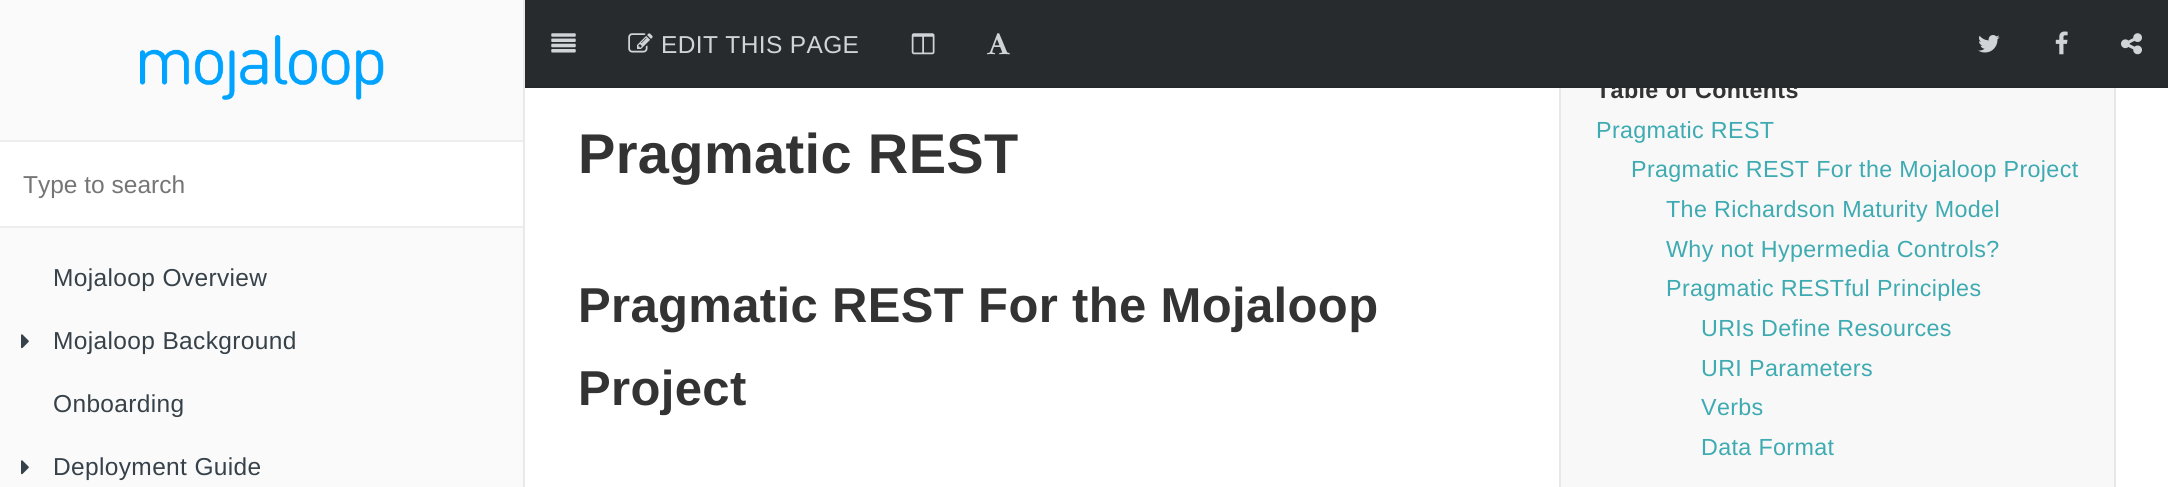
import math
import cairo

surface = cairo.ImageSurface(cairo.FORMAT_RGB24, 2168, 487)
cr = cairo.Context(surface)
options = cairo.FontOptions()
options.set_hint_metrics(cairo.HINT_METRICS_OFF)
options.set_hint_style(cairo.HINT_STYLE_NONE)
cr.set_font_options(options)
cr.set_miter_limit(4)


def rgb(code):
    cr.set_source_rgb(*(v / 255 for v in bytes.fromhex(code[-6:])))


def tracked(x, y, s, letter, word):
    cr.move_to(x, y)
    for ch in s:
        cr.show_text(ch)
        cr.rel_move_to(letter + word * (ch == ' '), 0)


def image(path, x, y, w, h):
    cr.save()
    cr.set_source_surface(cairo.ImageSurface.create_from_png(path), x, y)
    cr.rectangle(x, y, w, h)
    cr.fill()
    cr.restore()


rgb("#ffffff")
cr.paint()
rgb("#fafafa")
cr.rectangle(0, 0, 523, 487)
cr.fill()
rgb("#e9e9e9")
cr.rectangle(523, 0, 2, 487)
cr.fill()
image("img/1.png", 140, 35, 244, 65)
for x, y, w, h, color in [
    (0, 142, 523, 84, "#ffffff"),
    (0, 140, 523, 2, "#ededed"),
    (0, 226, 523, 2, "#ededed"),
]:
    rgb(color)
    cr.rectangle(x, y, w, h)
    cr.fill()
image("img/2.png", 21, 334, 8, 15)
image("img/2.png", 21, 460, 8, 15)
rgb("#f8f8f8")
cr.rectangle(1559, 88, 557, 399)
cr.fill()
cr.rectangle(1560, 36, 555, 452)
cr.set_source_rgba(0, 0, 0, 0.07)
cr.stroke()
cr.select_font_face("Liberation Sans")
cr.set_font_size(24.5)
rgb("#757575")
cr.move_to(23, 193)
cr.show_text("Type to search")
rgb("#364149")
for x, y, s in [
    (53, 286, "Mojaloop Overview"),
    (53, 349, "Mojaloop Background"),
    (53, 412, "Onboarding"),
    (53, 475, "Deployment Guide"),
]:
    tracked(x, y, s, 0.35, 0)
cr.select_font_face("Liberation Sans", cairo.FONT_SLANT_NORMAL, cairo.FONT_WEIGHT_BOLD)
cr.set_font_size(56)
rgb("#333333")
tracked(578, 173, "Pragmatic REST", 0.35, 0)
cr.set_font_size(23.3)
tracked(1596, 98, "Table of Contents", 0.35, 0)
rgb("#272b2d")
cr.rectangle(525, 0, 1643, 86)
cr.fill()
image("img/6.png", 987, 33, 23, 22)
image("img/5.png", 911, 33, 24, 22)
image("img/7.png", 1978, 35, 22, 18)
image("img/8.png", 2055, 31, 13, 24)
image("img/9.png", 2121, 33, 21, 22)
cr.select_font_face("Liberation Sans")
cr.set_font_size(24.5)
rgb("#d0d4d7")
tracked(661, 53, "EDIT THIS PAGE", 0.35, 0)
image("img/4.png", 628, 33, 25, 20)
image("img/3.png", 551, 33, 25, 20)
rgb("#24282a")
cr.rectangle(525, 86, 1643, 2)
cr.fill()
cr.set_font_size(23.3)
rgb("#3eaab1")
for x, y, s in [
    (1596, 138, "Pragmatic REST"),
    (1631, 177, "Pragmatic REST For the Mojaloop Project"),
    (1666, 217, "The Richardson Maturity Model"),
    (1666, 257, "Why not Hypermedia Controls?"),
    (1666, 296, "Pragmatic RESTful Principles"),
    (1701, 336, "URIs Define Resources"),
    (1701, 376, "URI Parameters"),
    (1701, 415, "Verbs"),
    (1701, 455, "Data Format"),
]:
    tracked(x, y, s, 0.35, 0)
cr.select_font_face("Liberation Sans", cairo.FONT_SLANT_NORMAL, cairo.FONT_WEIGHT_BOLD)
cr.set_font_size(49)
rgb("#333333")
tracked(578, 322, "Pragmatic REST For the Mojaloop", 0.35, 0)
tracked(578, 405, "Project", 0.35, 0)
surface.write_to_png("page.png")
